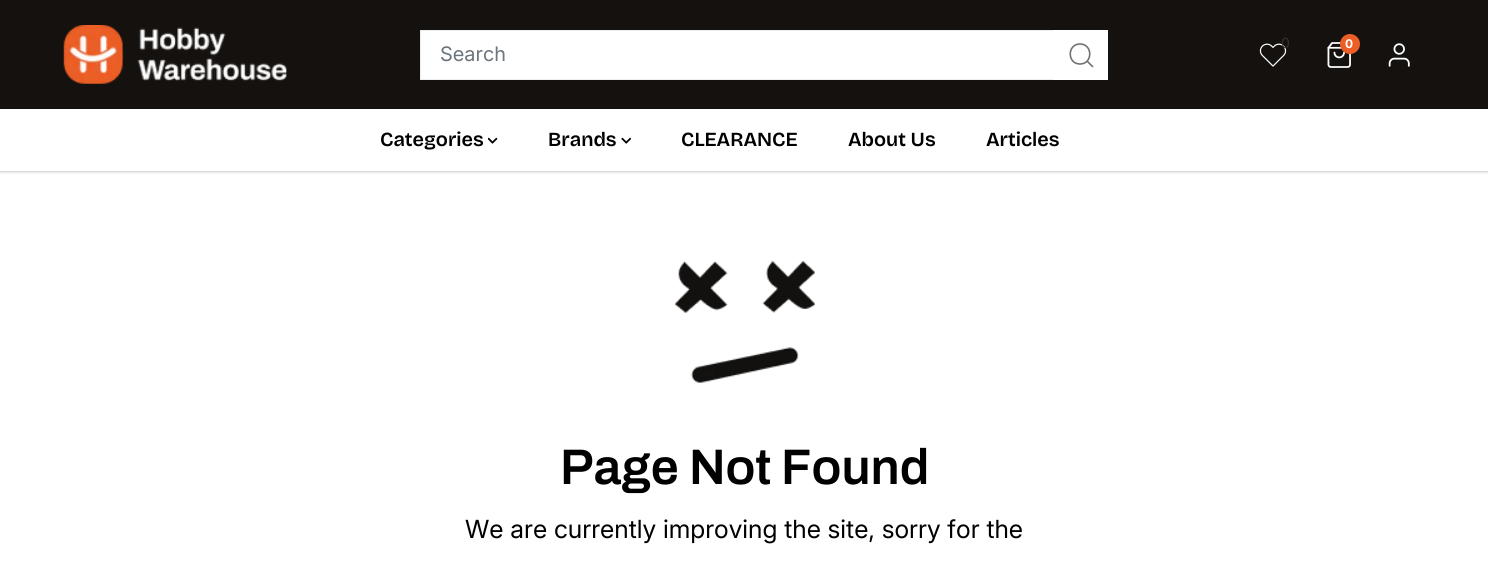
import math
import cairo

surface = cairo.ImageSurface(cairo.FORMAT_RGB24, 1488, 562)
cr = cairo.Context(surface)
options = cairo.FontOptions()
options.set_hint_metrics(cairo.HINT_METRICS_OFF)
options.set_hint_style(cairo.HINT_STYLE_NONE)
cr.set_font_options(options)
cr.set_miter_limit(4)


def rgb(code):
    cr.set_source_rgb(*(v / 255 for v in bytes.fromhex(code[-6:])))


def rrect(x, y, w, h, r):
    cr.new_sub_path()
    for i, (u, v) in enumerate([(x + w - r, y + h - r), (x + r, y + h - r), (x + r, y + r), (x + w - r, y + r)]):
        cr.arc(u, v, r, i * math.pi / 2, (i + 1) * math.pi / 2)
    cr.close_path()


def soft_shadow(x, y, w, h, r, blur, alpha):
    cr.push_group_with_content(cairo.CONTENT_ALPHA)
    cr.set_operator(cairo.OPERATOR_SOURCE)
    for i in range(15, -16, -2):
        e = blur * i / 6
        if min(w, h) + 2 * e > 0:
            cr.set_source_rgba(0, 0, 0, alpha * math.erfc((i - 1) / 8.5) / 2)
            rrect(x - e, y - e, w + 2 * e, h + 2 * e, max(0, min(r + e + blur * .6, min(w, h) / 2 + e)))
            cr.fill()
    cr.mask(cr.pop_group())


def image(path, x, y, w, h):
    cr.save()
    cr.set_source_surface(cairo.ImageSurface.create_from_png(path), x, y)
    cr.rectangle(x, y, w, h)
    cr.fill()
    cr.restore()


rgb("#ffffff")
cr.paint()
rgb("#14110f")
cr.rectangle(0, 0, 1488, 109)
cr.fill()
cr.save()
cr.rectangle(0, 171, 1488, 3)
cr.clip()
rgb("#000000")
soft_shadow(0, 3, 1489, 171, 0, 1, 0.05)
cr.restore()
image("img/1.png", 63, 25, 224, 59)
image("img/2.png", 1259, 43, 28, 24)
image("img/3.png", 1327, 42, 24, 26)
rgb("#eb5e26")
cr.arc(1350, 44, 10, 0, 2 * math.pi)
cr.fill()
image("img/4.png", 1388, 43, 22, 24)
rgb("#ffffff")
cr.rectangle(421, 31, 632, 48)
cr.fill()
cr.rectangle(420.5, 30.5, 687, 49)
rgb("#ededed")
cr.set_line_width(1)
cr.stroke()
rgb("#ffffff")
cr.rectangle(1053, 30, 55, 50)
cr.fill()
cr.new_path()
cr.move_to(1080, 64)
cr.curve_to(1093, 64, 1093, 44, 1080, 44)
cr.curve_to(1067, 44, 1067, 64, 1080, 64)
cr.close_path()
cr.move_to(1092.5, 66.5)
cr.line_to(1087, 61)
rgb("#72706f")
cr.set_line_width(1.6)
cr.set_line_cap(cairo.LINE_CAP_ROUND)
cr.set_line_join(cairo.LINE_JOIN_ROUND)
cr.stroke()
rgb("#000000")
soft_shadow(-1, 109, 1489, 62, 0, 1, 0.3)
rgb("#ffffff")
cr.rectangle(0, 109, 1488, 62)
cr.fill()
image("img/5.png", 488, 137, 10, 7)
image("img/6.png", 621, 137, 10, 7)
image("img/7.png", 675, 261, 140, 122)
cr.select_font_face("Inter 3")
cr.set_font_size(14)
rgb("#343130")
cr.move_to(1281, 48)
cr.show_text("0")
cr.select_font_face("Inter", cairo.FONT_SLANT_NORMAL, cairo.FONT_WEIGHT_BOLD)
cr.set_font_size(12)
rgb("#ffffff")
cr.move_to(1345, 48)
cr.show_text("0")
cr.select_font_face("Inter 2")
cr.set_font_size(20)
rgb("#6c757d")
cr.move_to(440, 61)
cr.show_text("Search")
cr.select_font_face("Bricolage Grotesque SemiBold")
rgb("#000000")
for x, y, s in [
    (380, 146, "Categories"),
    (548, 146, "Brands"),
    (681, 146, "CLEARANCE"),
    (848, 146, "About Us"),
    (986, 146, "Articles"),
]:
    cr.move_to(x, y)
    cr.show_text(s)
cr.select_font_face("Archivo SemiBold")
cr.set_font_size(50)
cr.move_to(560, 484)
cr.show_text("Page Not Found")
cr.select_font_face("Inter")
cr.set_font_size(25)
cr.move_to(465, 538)
cr.show_text("We are currently improving the site, sorry for the")
surface.write_to_png("page.png")
